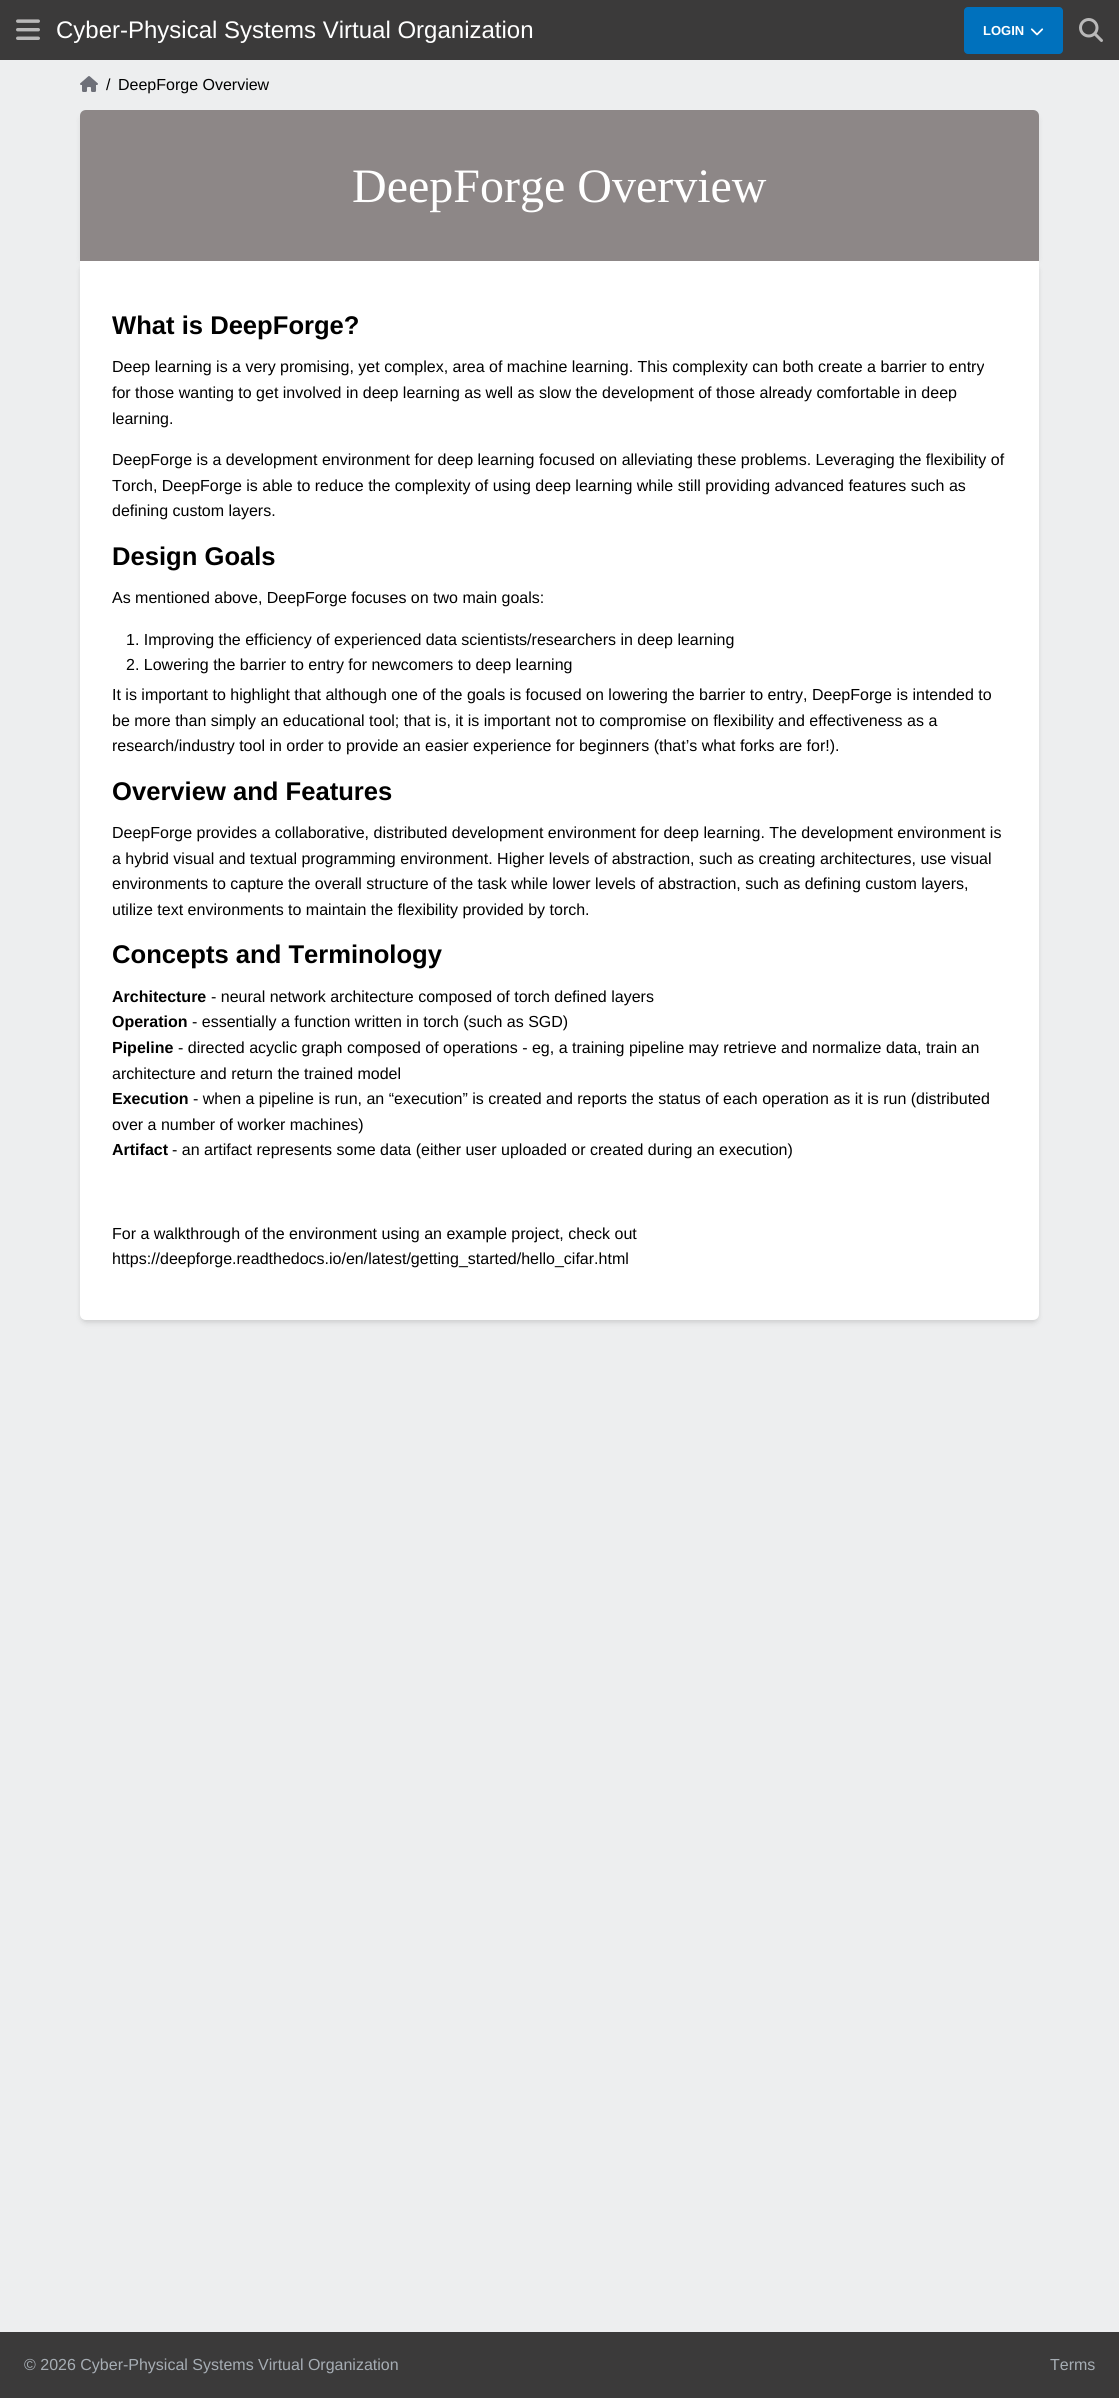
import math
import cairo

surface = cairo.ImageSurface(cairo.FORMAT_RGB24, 1119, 2398)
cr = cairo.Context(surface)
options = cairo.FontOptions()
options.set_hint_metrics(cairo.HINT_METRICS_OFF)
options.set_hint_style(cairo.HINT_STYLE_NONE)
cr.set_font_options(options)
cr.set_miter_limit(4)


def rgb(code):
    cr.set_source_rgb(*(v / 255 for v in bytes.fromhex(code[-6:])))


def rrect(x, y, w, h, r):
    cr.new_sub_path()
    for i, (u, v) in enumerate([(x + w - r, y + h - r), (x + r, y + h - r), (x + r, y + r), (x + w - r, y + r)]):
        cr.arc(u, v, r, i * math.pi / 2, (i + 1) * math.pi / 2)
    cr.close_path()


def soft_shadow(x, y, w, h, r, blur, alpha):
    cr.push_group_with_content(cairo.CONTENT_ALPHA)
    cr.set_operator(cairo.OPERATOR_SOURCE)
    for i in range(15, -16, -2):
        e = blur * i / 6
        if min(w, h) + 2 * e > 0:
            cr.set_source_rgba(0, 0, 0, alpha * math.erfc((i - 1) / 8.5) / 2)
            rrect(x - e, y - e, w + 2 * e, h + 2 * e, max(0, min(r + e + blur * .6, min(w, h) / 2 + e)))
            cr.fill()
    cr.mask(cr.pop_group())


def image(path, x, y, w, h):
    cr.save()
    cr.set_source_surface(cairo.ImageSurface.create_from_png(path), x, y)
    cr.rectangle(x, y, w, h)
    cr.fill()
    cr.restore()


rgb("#edeeef")
cr.paint()
rgb("#3b3a3a")
cr.rectangle(0, 0, 1119, 60)
cr.fill()
image("img/1.png", 16, 19, 24, 21)
rgb("#0071bd")
rrect(964, 7, 99, 47, 4)
cr.fill()
image("img/2.png", 1030, 28, 14, 8)
image("img/3.png", 1079, 18, 24, 24)
image("img/4.png", 80, 76, 18, 16)
rgb("#000000")
soft_shadow(81, 115, 957, 149, 5, 3, 0.1)
rgb("#8d8787")
cr.new_path()
cr.move_to(86, 110)
cr.line_to(1033, 110)
cr.curve_to(1036.5, 110, 1039, 112.5, 1039, 116)
cr.line_to(1039, 261)
cr.line_to(80, 261)
cr.line_to(80, 116)
cr.curve_to(80, 112.5, 82.5, 110, 86, 110)
cr.close_path()
cr.fill()
rgb("#000000")
soft_shadow(81, 264, 957, 1057, 5, 2, 0.06)
soft_shadow(81, 266, 957, 1057, 5, 3, 0.1)
rgb("#ffffff")
cr.new_path()
cr.move_to(80, 261)
cr.line_to(1039, 261)
cr.line_to(1039, 1314)
cr.curve_to(1039, 1317.5, 1036.5, 1320, 1033, 1320)
cr.line_to(86, 1320)
cr.curve_to(82.5, 1320, 80, 1317.5, 80, 1314)
cr.close_path()
cr.fill()
rgb("#3b3a3a")
cr.rectangle(0, 2332, 1119, 66)
cr.fill()
cr.select_font_face("Liberation Sans")
cr.set_font_size(24)
rgb("#ffffff")
cr.move_to(56, 38)
cr.show_text("Cyber-Physical Systems Virtual Organization")
cr.select_font_face("Liberation Sans", cairo.FONT_SLANT_NORMAL, cairo.FONT_WEIGHT_BOLD)
cr.set_font_size(13)
cr.move_to(983, 35)
cr.show_text("LOGIN")
cr.select_font_face("Liberation Sans")
cr.set_font_size(16)
rgb("#000000")
cr.move_to(106, 90)
cr.show_text("/")
cr.move_to(118, 90)
cr.show_text("DeepForge Overview")
cr.select_font_face("Liberation Serif")
cr.set_font_size(48)
rgb("#ffffff")
cr.move_to(352, 202)
cr.show_text("DeepForge Overview")
cr.select_font_face("Liberation Sans", cairo.FONT_SLANT_NORMAL, cairo.FONT_WEIGHT_BOLD)
cr.set_font_size(25.6)
rgb("#000000")
cr.move_to(112, 334)
cr.show_text("What is DeepForge?")
cr.select_font_face("Liberation Sans")
cr.set_font_size(16)
for x, y, s in [
    (112, 372, "Deep learning is a very promising, yet complex, area of machine learning. This complexity can both create a barrier to entry"),
    (112, 398, "for those wanting to get involved in deep learning as well as slow the development of those already comfortable in deep"),
    (112, 424, "learning."),
    (112, 465, "DeepForge is a development environment for deep learning focused on alleviating these problems. Leveraging the flexibility of"),
    (112, 491, "Torch, DeepForge is able to reduce the complexity of using deep learning while still providing advanced features such as"),
    (112, 516, "defining custom layers."),
]:
    cr.move_to(x, y)
    cr.show_text(s)
cr.select_font_face("Liberation Sans", cairo.FONT_SLANT_NORMAL, cairo.FONT_WEIGHT_BOLD)
cr.set_font_size(25.6)
cr.move_to(112, 565)
cr.show_text("Design Goals")
cr.select_font_face("Liberation Sans")
cr.set_font_size(16)
for x, y, s in [
    (112, 603, "As mentioned above, DeepForge focuses on two main goals:"),
    (126, 645, "1. Improving the efficiency of experienced data scientists/researchers in deep learning"),
    (126, 670, "2. Lowering the barrier to entry for newcomers to deep learning"),
    (112, 700, "It is important to highlight that although one of the goals is focused on lowering the barrier to entry, DeepForge is intended to"),
    (112, 726, "be more than simply an educational tool; that is, it is important not to compromise on flexibility and effectiveness as a"),
    (112, 751, "research/industry tool in order to provide an easier experience for beginners (that’s what forks are for!)."),
]:
    cr.move_to(x, y)
    cr.show_text(s)
cr.select_font_face("Liberation Sans", cairo.FONT_SLANT_NORMAL, cairo.FONT_WEIGHT_BOLD)
cr.set_font_size(25.6)
cr.move_to(112, 800)
cr.show_text("Overview and Features")
cr.select_font_face("Liberation Sans")
cr.set_font_size(16)
for x, y, s in [
    (112, 838, "DeepForge provides a collaborative, distributed development environment for deep learning. The development environment is"),
    (112, 864, "a hybrid visual and textual programming environment. Higher levels of abstraction, such as creating architectures, use visual"),
    (112, 889, "environments to capture the overall structure of the task while lower levels of abstraction, such as defining custom layers,"),
    (112, 915, "utilize text environments to maintain the flexibility provided by torch."),
]:
    cr.move_to(x, y)
    cr.show_text(s)
cr.select_font_face("Liberation Sans", cairo.FONT_SLANT_NORMAL, cairo.FONT_WEIGHT_BOLD)
cr.set_font_size(25.6)
cr.move_to(112, 963)
cr.show_text("Concepts and Terminology")
cr.set_font_size(16)
cr.move_to(112, 1002)
cr.show_text("Architecture")
cr.select_font_face("Liberation Sans")
cr.move_to(211, 1002)
cr.show_text("- neural network architecture composed of torch defined layers")
cr.select_font_face("Liberation Sans", cairo.FONT_SLANT_NORMAL, cairo.FONT_WEIGHT_BOLD)
cr.move_to(112, 1027)
cr.show_text("Operation")
cr.select_font_face("Liberation Sans")
cr.move_to(192, 1027)
cr.show_text("- essentially a function written in torch (such as SGD)")
cr.select_font_face("Liberation Sans", cairo.FONT_SLANT_NORMAL, cairo.FONT_WEIGHT_BOLD)
cr.move_to(112, 1053)
cr.show_text("Pipeline")
cr.select_font_face("Liberation Sans")
cr.move_to(178, 1053)
cr.show_text("- directed acyclic graph composed of operations - eg, a training pipeline may retrieve and normalize data, train an")
cr.move_to(112, 1079)
cr.show_text("architecture and return the trained model")
cr.select_font_face("Liberation Sans", cairo.FONT_SLANT_NORMAL, cairo.FONT_WEIGHT_BOLD)
cr.move_to(112, 1104)
cr.show_text("Execution")
cr.select_font_face("Liberation Sans")
cr.move_to(193, 1104)
cr.show_text("- when a pipeline is run, an “execution” is created and reports the status of each operation as it is run (distributed")
cr.move_to(112, 1130)
cr.show_text("over a number of worker machines)")
cr.select_font_face("Liberation Sans", cairo.FONT_SLANT_NORMAL, cairo.FONT_WEIGHT_BOLD)
cr.move_to(112, 1155)
cr.show_text("Artifact")
cr.select_font_face("Liberation Sans")
for x, y, s in [
    (172, 1155, "- an artifact represents some data (either user uploaded or created during an execution)"),
    (112, 1239, "For a walkthrough of the environment using an example project, check out"),
    (112, 1264, "https://deepforge.readthedocs.io/en/latest/getting_started/hello_cifar.html"),
]:
    cr.move_to(x, y)
    cr.show_text(s)
rgb("#a6adb4")
cr.move_to(24, 2370)
cr.show_text("© 2026 Cyber-Physical Systems Virtual Organization")
cr.move_to(1050, 2370)
cr.show_text("Terms")
surface.write_to_png("page.png")
